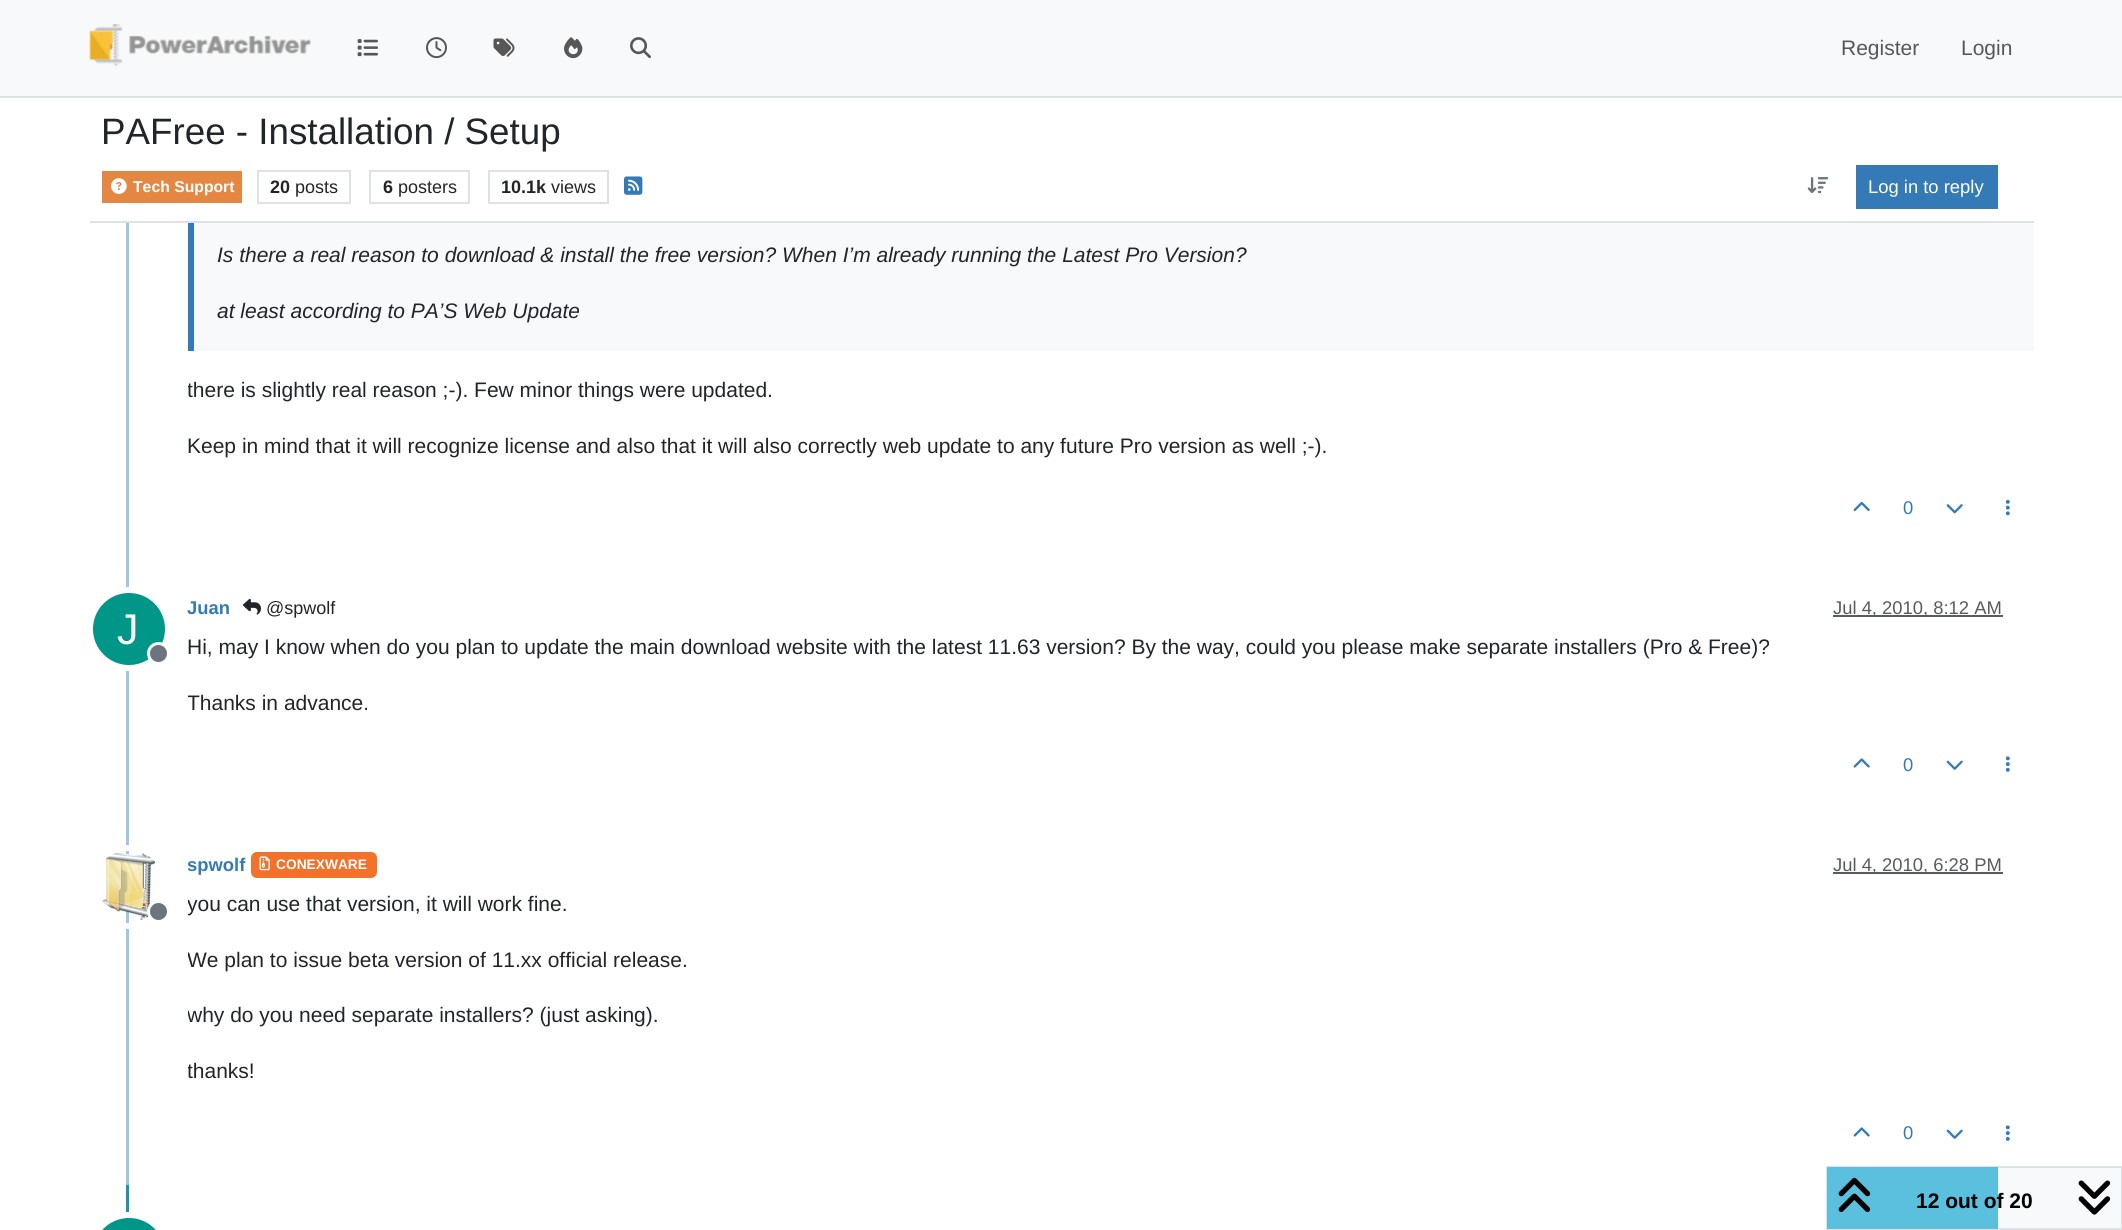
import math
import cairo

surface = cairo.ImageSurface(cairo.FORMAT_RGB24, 2122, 1230)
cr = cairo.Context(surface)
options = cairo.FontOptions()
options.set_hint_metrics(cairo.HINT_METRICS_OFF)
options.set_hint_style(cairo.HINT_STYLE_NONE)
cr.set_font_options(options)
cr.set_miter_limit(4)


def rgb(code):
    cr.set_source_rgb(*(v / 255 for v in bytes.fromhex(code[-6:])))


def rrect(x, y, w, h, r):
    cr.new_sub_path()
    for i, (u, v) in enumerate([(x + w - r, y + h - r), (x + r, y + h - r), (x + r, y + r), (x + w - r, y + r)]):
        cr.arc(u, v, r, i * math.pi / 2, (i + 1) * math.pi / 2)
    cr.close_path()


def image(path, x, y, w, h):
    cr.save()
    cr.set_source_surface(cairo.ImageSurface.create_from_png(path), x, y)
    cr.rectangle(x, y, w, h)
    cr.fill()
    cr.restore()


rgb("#ffffff")
cr.paint()
rgb("#f8f9fa")
cr.rectangle(0, 0, 2122, 96)
cr.fill()
rgb("#dee2e6")
cr.rectangle(0, 96, 2122, 2)
cr.fill()
image("img/1.png", 89, 24, 222, 42)
image("img/2.png", 357, 39, 21, 18)
image("img/3.png", 426, 37, 21, 22)
image("img/4.png", 493, 38, 22, 19)
image("img/5.png", 564, 37, 19, 22)
image("img/6.png", 630, 37, 21, 22)
for x, y, w, h, color in [
    (188, 216, 6, 135, "#337ab7"),
    (188, 216, 6, 5, "#ffffff"),
    (90, 221, 1944, 2, "#dee2e6"),
    (102, 171, 140, 32, "#e48743"),
]:
    rgb(color)
    cr.rectangle(x, y, w, h)
    cr.fill()
image("img/7.png", 111, 178, 16, 16)
cr.rectangle(258, 171, 92, 32)
rgb("#dee2e6")
cr.stroke()
cr.rectangle(370, 171, 99, 32)
cr.stroke()
cr.rectangle(489, 171, 119, 32)
cr.stroke()
image("img/8.png", 624, 176, 19, 19)
image("img/9.png", 1807, 177, 22, 17)
for x, y, w, h, color in [
    (1856, 165, 142, 44, "#337ab7"),
    (126, 223, 3, 962, "#a0c4e4"),
    (194, 223, 1840, 128, "#f8f9fa"),
]:
    rgb(color)
    cr.rectangle(x, y, w, h)
    cr.fill()
image("img/10.png", 1853, 501, 17, 10)
image("img/11.png", 1946, 504, 17, 10)
image("img/12.png", 2005, 499, 5, 17)
image("img/13.png", 243, 598, 18, 17)
rgb("#595c5f")
cr.rectangle(1833, 615, 170, 2)
cr.fill()
cr.arc(129, 629, 39, 0, 2 * math.pi)
rgb("#ffffff")
cr.set_line_width(6)
cr.stroke()
rgb("#009688")
cr.arc(129, 629, 36, 0, 2 * math.pi)
cr.fill()
rgb("#6c757d")
cr.arc(158.5, 653.5, 10, 0, 2 * math.pi)
cr.fill_preserve()
rgb("#ffffff")
cr.set_line_width(3)
cr.stroke()
image("img/14.png", 1853, 758, 17, 10)
image("img/15.png", 1946, 760, 17, 10)
image("img/16.png", 2005, 756, 5, 16)
cr.arc(129, 887, 39, 0, 2 * math.pi)
cr.set_line_width(6)
cr.stroke()
image("img/17.png", 102, 853, 54, 68)
rgb("#6c757d")
cr.arc(158.5, 911.5, 10, 0, 2 * math.pi)
cr.fill_preserve()
rgb("#ffffff")
cr.set_line_width(3)
cr.stroke()
rgb("#f2722c")
rrect(251, 852, 126, 26, 6)
cr.fill()
image("img/18.png", 259, 856, 11, 15)
rgb("#595c5f")
cr.rectangle(1833, 872, 170, 2)
cr.fill()
image("img/14.png", 1853, 1127, 17, 10)
image("img/15.png", 1946, 1129, 17, 10)
image("img/16.png", 2005, 1125, 5, 16)
rgb("#2390b0")
cr.rectangle(126, 1185, 3, 34)
cr.fill()
rrect(90, 1215, 78, 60, 39)
rgb("#ffffff")
cr.set_line_width(6)
cr.stroke()
rgb("#009688")
rrect(93, 1218, 72, 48, 36)
cr.fill()
rgb("#f8f9fa")
cr.rectangle(1998, 1168, 123, 60)
cr.fill()
cr.rectangle(1827, 1167, 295, 62)
rgb("#dee2e6")
cr.set_line_width(2)
cr.stroke()
rgb("#5bc0de")
cr.rectangle(1827, 1167, 171, 62)
cr.fill()
image("img/19.png", 1838, 1177, 33, 35)
image("img/20.png", 2078, 1180, 33, 35)
cr.select_font_face("Liberation Sans")
cr.set_font_size(21)
rgb("#575758")
cr.move_to(1841, 55)
cr.show_text("Register")
cr.move_to(1961, 55)
cr.show_text("Login")
cr.set_font_size(36.75)
rgb("#212529")
cr.move_to(101, 144)
cr.show_text("PAFree - Installation / Setup")
cr.select_font_face("Liberation Sans", cairo.FONT_SLANT_NORMAL, cairo.FONT_WEIGHT_BOLD)
cr.set_font_size(15.75)
rgb("#ffffff")
cr.move_to(133, 192)
cr.show_text("Tech Support")
cr.set_font_size(18)
rgb("#212529")
cr.move_to(270, 193)
cr.show_text("20")
cr.select_font_face("Liberation Sans")
cr.move_to(295, 193)
cr.show_text("posts")
cr.select_font_face("Liberation Sans", cairo.FONT_SLANT_NORMAL, cairo.FONT_WEIGHT_BOLD)
cr.move_to(383, 193)
cr.show_text("6")
cr.select_font_face("Liberation Sans")
cr.move_to(398, 193)
cr.show_text("posters")
cr.select_font_face("Liberation Sans", cairo.FONT_SLANT_NORMAL, cairo.FONT_WEIGHT_BOLD)
cr.move_to(501, 193)
cr.show_text("10.1k")
cr.select_font_face("Liberation Sans")
cr.move_to(551, 193)
cr.show_text("views")
cr.set_font_size(18.4)
rgb("#ffffff")
cr.move_to(1868, 193)
cr.show_text("Log in to reply")
cr.select_font_face("Liberation Sans", cairo.FONT_SLANT_ITALIC)
cr.set_font_size(21)
rgb("#212529")
cr.move_to(217, 262)
cr.show_text("Is there a real reason to download & install the free version? When I’m already running the Latest Pro Version?")
cr.move_to(217, 318)
cr.show_text("at least according to PA’S Web Update")
cr.save()
cr.rectangle(188, 161, 1846, 327)
cr.clip()
cr.select_font_face("Liberation Sans")
cr.move_to(187, 397)
cr.show_text("there is slightly real reason ;-). Few minor things were updated.")
cr.restore()
cr.select_font_face("Liberation Sans")
cr.move_to(187, 453)
cr.show_text("Keep in mind that it will recognize license and also that it will also correctly web update to any future Pro version as well ;-).")
cr.set_font_size(18.4)
rgb("#337ab7")
cr.move_to(1903, 514)
cr.show_text("0")
cr.select_font_face("Liberation Sans", cairo.FONT_SLANT_NORMAL, cairo.FONT_WEIGHT_BOLD)
cr.move_to(187, 614)
cr.show_text("Juan")
cr.select_font_face("Liberation Sans")
cr.set_font_size(18)
rgb("#212529")
cr.move_to(266, 614)
cr.show_text("@spwolf")
cr.set_font_size(18.4)
rgb("#585b5e")
cr.move_to(1833, 614)
cr.show_text("Jul 4, 2010, 8:12 AM")
cr.set_font_size(43)
rgb("#ffffff")
cr.move_to(117, 644)
cr.show_text("J")
cr.set_font_size(21)
rgb("#212529")
cr.move_to(187, 654)
cr.show_text("Hi, may I know when do you plan to update the main download website with the latest 11.63 version? By the way, could you please make separate installers (Pro & Free)?")
cr.save()
cr.rectangle(188, 632, 1846, 112)
cr.clip()
cr.move_to(187, 710)
cr.show_text("Thanks in advance.")
cr.restore()
cr.set_font_size(18.4)
rgb("#337ab7")
cr.move_to(1903, 771)
cr.show_text("0")
cr.select_font_face("Liberation Sans", cairo.FONT_SLANT_NORMAL, cairo.FONT_WEIGHT_BOLD)
cr.move_to(187, 871)
cr.show_text("spwolf")
cr.set_font_size(13.75)
rgb("#ffffff")
cr.move_to(276, 869)
cr.show_text("CONEXWARE")
cr.select_font_face("Liberation Sans")
cr.set_font_size(18.4)
rgb("#585b5e")
cr.move_to(1833, 871)
cr.show_text("Jul 4, 2010, 6:28 PM")
cr.save()
cr.rectangle(188, 890, 1846, 223)
cr.clip()
cr.set_font_size(21)
rgb("#212529")
for x, y, s in [
    (187, 911, "you can use that version, it will work fine."),
    (187, 967, "We plan to issue beta version of 11.xx official release."),
    (187, 1022, "why do you need separate installers? (just asking)."),
    (187, 1078, "thanks!"),
]:
    cr.move_to(x, y)
    cr.show_text(s)
cr.restore()
rgb("#337ab7")
cr.move_to(1903, 1139)
cr.show_text("0")
cr.select_font_face("Liberation Sans", cairo.FONT_SLANT_NORMAL, cairo.FONT_WEIGHT_BOLD)
cr.set_font_size(21)
rgb("#000000")
cr.move_to(1916, 1208)
cr.show_text("12 out of 20")
surface.write_to_png("page.png")
